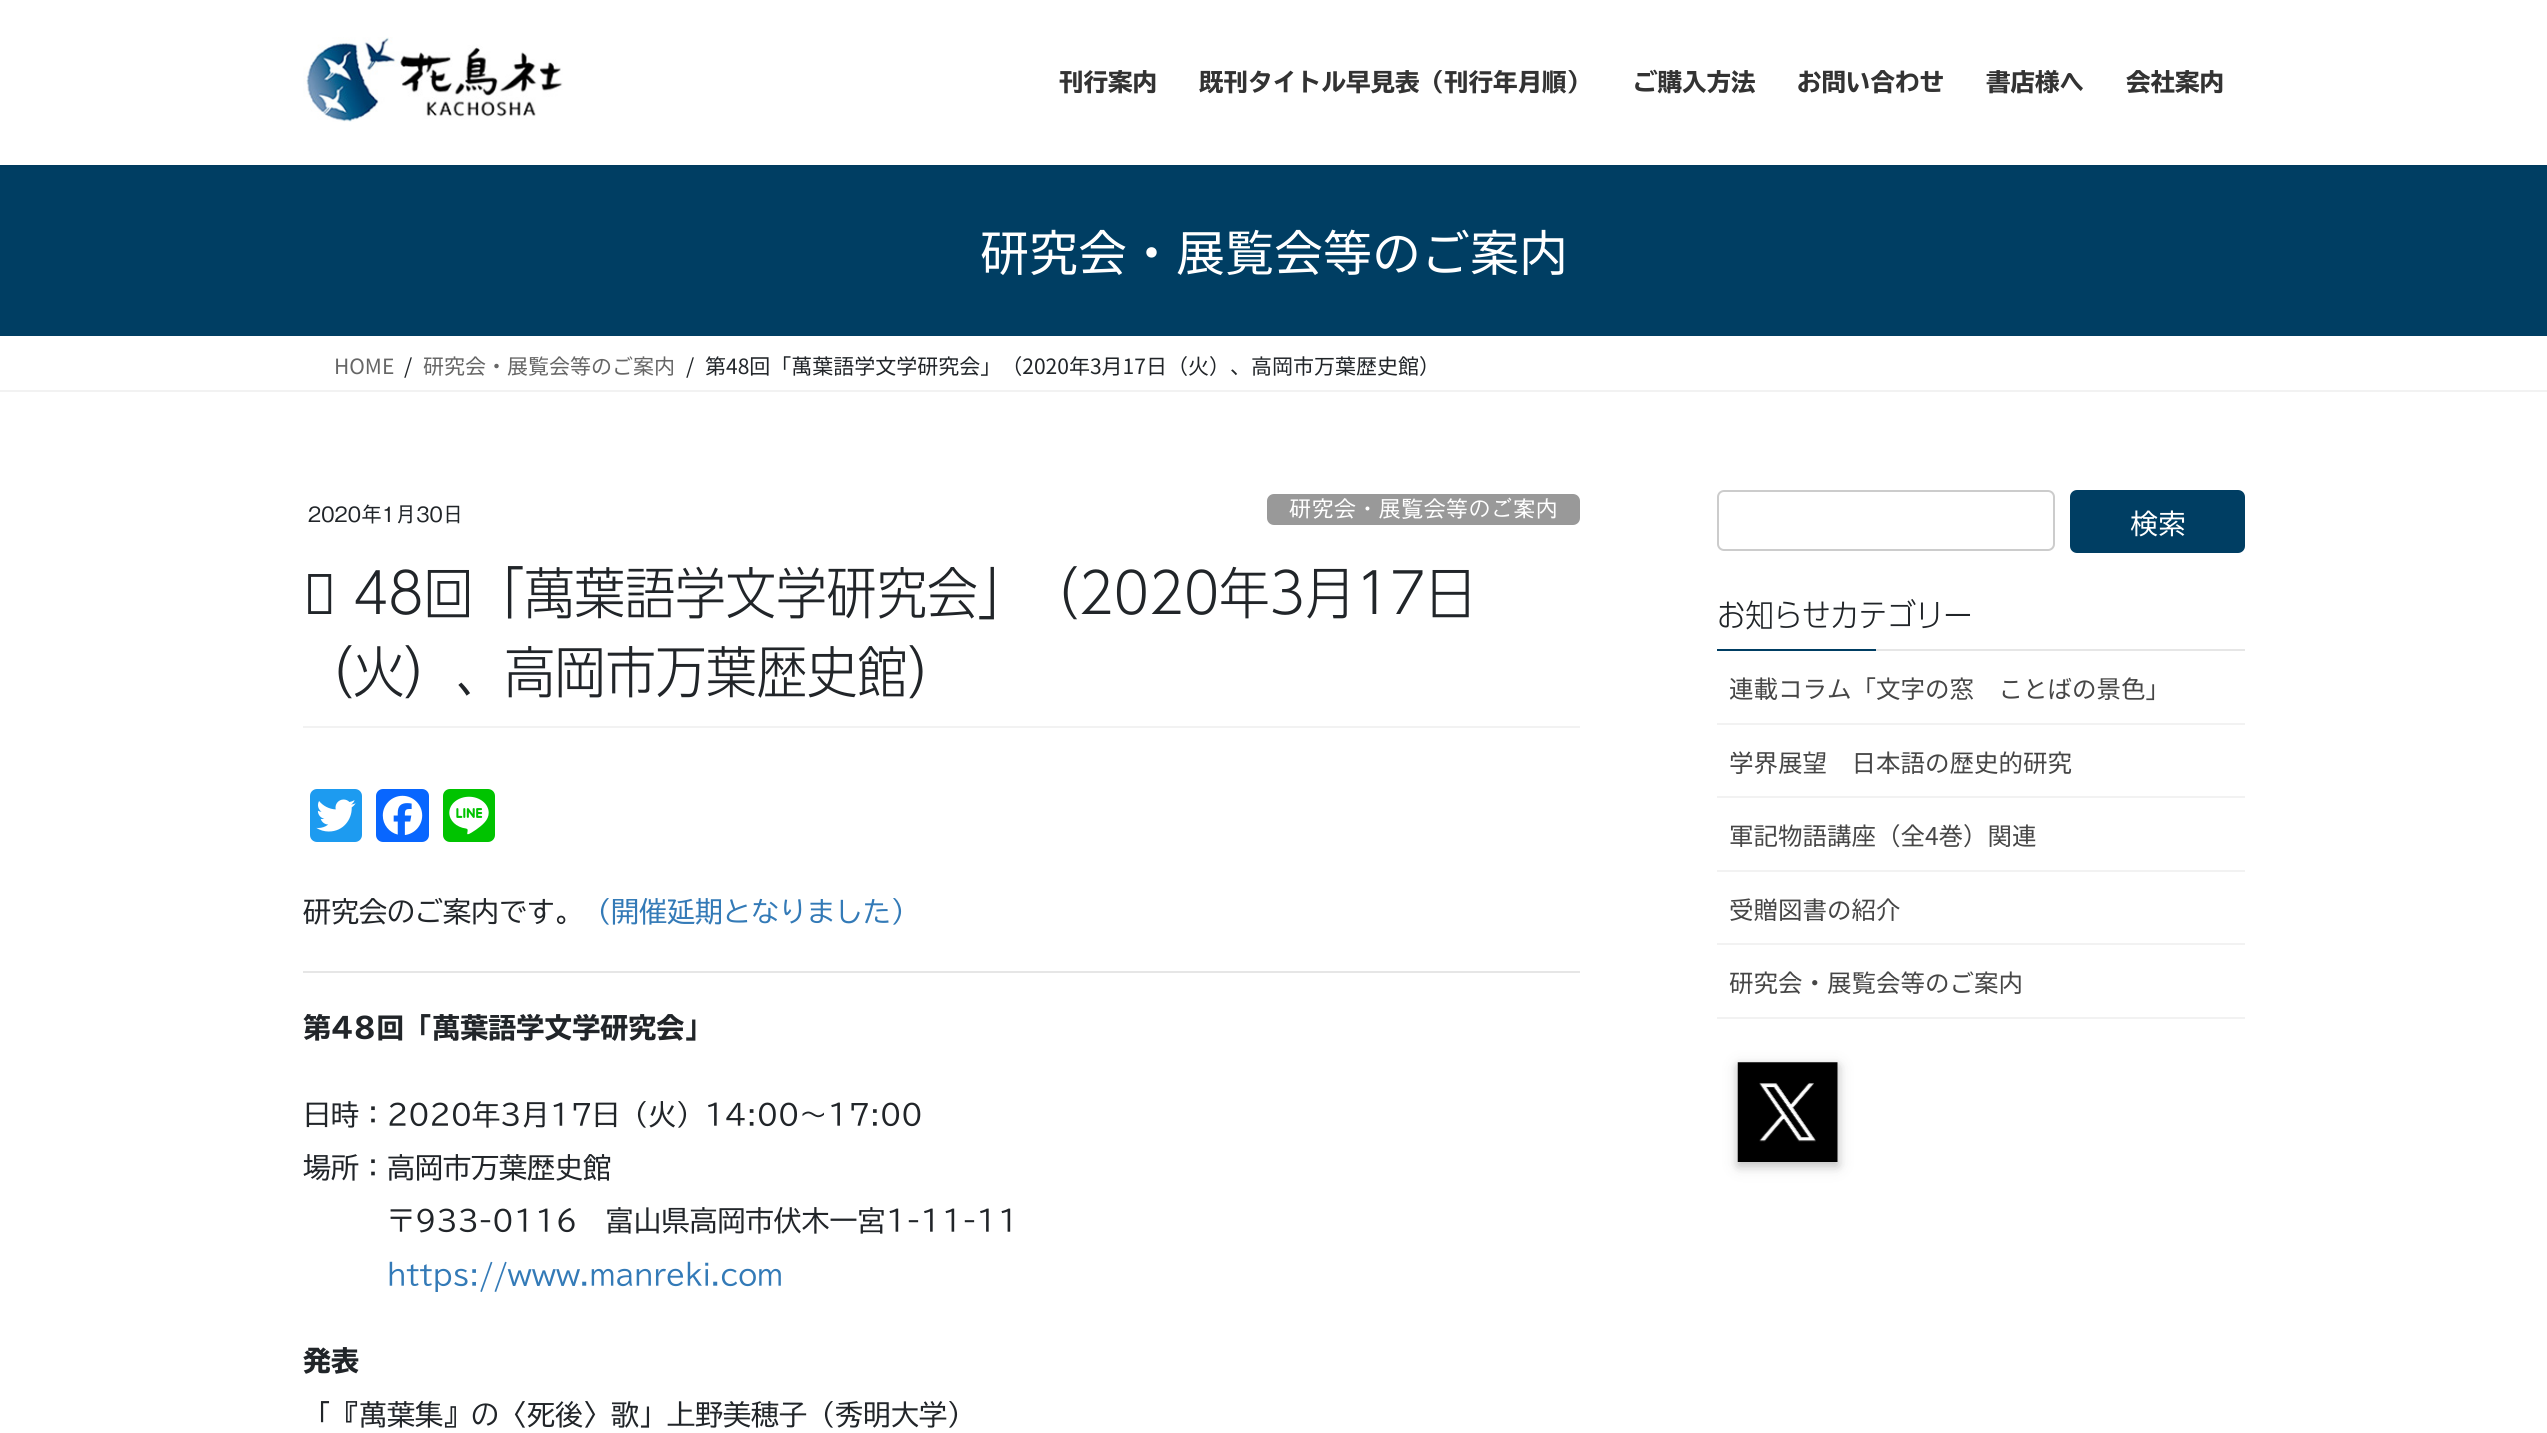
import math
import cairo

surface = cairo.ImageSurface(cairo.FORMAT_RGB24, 2547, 1433)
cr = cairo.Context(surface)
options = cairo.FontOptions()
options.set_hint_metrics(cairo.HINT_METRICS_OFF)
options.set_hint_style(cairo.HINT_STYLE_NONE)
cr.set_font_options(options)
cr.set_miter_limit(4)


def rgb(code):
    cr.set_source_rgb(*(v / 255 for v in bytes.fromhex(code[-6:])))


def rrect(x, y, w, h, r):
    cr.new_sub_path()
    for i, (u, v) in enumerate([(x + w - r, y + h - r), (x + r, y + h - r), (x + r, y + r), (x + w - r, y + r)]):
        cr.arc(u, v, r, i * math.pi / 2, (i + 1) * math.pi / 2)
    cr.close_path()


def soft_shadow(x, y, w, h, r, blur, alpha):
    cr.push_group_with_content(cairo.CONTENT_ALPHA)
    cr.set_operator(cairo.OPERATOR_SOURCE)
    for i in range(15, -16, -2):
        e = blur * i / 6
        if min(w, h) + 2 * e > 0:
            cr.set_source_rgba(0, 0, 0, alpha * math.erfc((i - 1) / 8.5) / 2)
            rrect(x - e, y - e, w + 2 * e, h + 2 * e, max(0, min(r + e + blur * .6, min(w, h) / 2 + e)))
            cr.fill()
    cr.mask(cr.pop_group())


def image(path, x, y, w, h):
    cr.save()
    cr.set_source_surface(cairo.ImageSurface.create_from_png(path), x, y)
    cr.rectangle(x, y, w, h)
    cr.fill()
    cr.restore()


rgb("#ffffff")
cr.paint()
rgb("#003e63")
cr.rectangle(0, 165, 2547, 171)
cr.fill()
rgb("#000000")
soft_shadow(0, 2, 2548, 164, 0, 2.5, 0.1)
rgb("#ffffff")
cr.rectangle(0, 0, 2547, 165)
cr.fill()
image("img/1.png", 303, 37, 260, 85)
rgb("#f2f2f2")
cr.rectangle(0, 390, 2547, 2)
cr.fill()
cr.rectangle(303, 726, 1277, 2)
cr.fill()
rgb("#999999")
rrect(1267, 494, 313, 31, 7)
cr.fill()
rgb("#1d9bf0")
rrect(310, 789, 52, 53, 7)
cr.fill()
image("img/2.png", 316, 799, 40, 33)
rgb("#0866ff")
rrect(376, 789, 53, 53, 7)
cr.fill()
image("img/3.png", 382, 795, 41, 40)
rgb("#00c300")
rrect(443, 789, 52, 53, 7)
cr.fill()
image("img/4.png", 449, 796, 40, 39)
rgb("#e6e6e6")
cr.rectangle(303, 971, 1277, 2)
cr.fill()
rrect(1718, 491, 336, 59, 6)
rgb("#cccccc")
cr.stroke()
rgb("#003e63")
rrect(2070, 490, 175, 63, 7)
cr.fill()
for x, y, w, h, color in [
    (1876, 649, 369, 2, "#e6e6e6"),
    (1717, 649, 159, 2, "#003e63"),
    (1717, 723, 528, 2, "#f2f2f2"),
    (1717, 796, 528, 2, "#f2f2f2"),
    (1717, 870, 528, 2, "#f2f2f2"),
    (1717, 943, 528, 2, "#f2f2f2"),
    (1717, 1017, 528, 2, "#f2f2f2"),
]:
    rgb(color)
    cr.rectangle(x, y, w, h)
    cr.fill()
rgb("#000000")
soft_shadow(1738, 1066, 100, 100, 0, 9, 0.12)
soft_shadow(1738, 1066, 100, 100, 0, 4.5, 0.16)
image("img/5.png", 1737, 1062, 101, 100)
cr.select_font_face("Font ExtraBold")
cr.set_font_size(24.5)
rgb("#333333")
for x, y, s in [
    (1059, 91, "刊行案内"),
    (1199, 91, "既刊タイトル早見表（刊行年月順）"),
    (1633, 91, "ご購入方法"),
    (1797, 91, "お問い合わせ"),
    (1986, 91, "書店様へ"),
    (2126, 91, "会社案内"),
]:
    cr.move_to(x, y)
    cr.show_text(s)
cr.select_font_face("Noto Sans JP")
cr.set_font_size(49)
rgb("#ffffff")
cr.move_to(980, 271)
cr.show_text("研究会・展覧会等のご案内")
cr.set_font_size(21)
rgb("#666666")
cr.move_to(334, 374)
cr.show_text("HOME")
rgb("#212529")
cr.move_to(404, 374)
cr.show_text("/")
rgb("#666666")
cr.move_to(423, 374)
cr.show_text("研究会・展覧会等のご案内")
rgb("#212529")
cr.move_to(686, 374)
cr.show_text("/")
cr.move_to(705, 374)
cr.show_text("第48回「萬葉語学文学研究会」（2020年3月17日（火）、高岡市万葉歴史館）")
cr.select_font_face("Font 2")
cr.move_to(308, 522)
cr.show_text("2020年1月30日")
cr.set_font_size(22.4)
rgb("#ffffff")
cr.move_to(1289, 517)
cr.show_text("研究会・展覧会等のご案内")
cr.select_font_face("Noto Sans Medium")
cr.set_font_size(56)
rgb("#212529")
cr.move_to(303, 614)
cr.show_text("第")
cr.select_font_face("Font Light")
cr.move_to(353, 614)
cr.show_text("48回「萬葉語学文学研究会」（2020年3月17日")
cr.move_to(303, 693)
cr.show_text("（火）、高岡市万葉歴史館）")
cr.select_font_face("Font")
cr.set_font_size(28)
cr.move_to(303, 922)
cr.show_text("研究会のご案内です。")
rgb("#337ab7")
cr.move_to(583, 922)
cr.show_text("（開催延期となりました）")
cr.select_font_face("Font ExtraBold")
rgb("#212529")
cr.move_to(303, 1038)
cr.show_text("第48回「萬葉語学文学研究会」")
cr.select_font_face("Font")
for x, y, s in [
    (303, 1125, "日時：2020年3月17日（火）14:00～17:00"),
    (303, 1178, "場所：高岡市万葉歴史館"),
    (387, 1231, "〒933-0116　富山県高岡市伏木一宮1-11-11"),
]:
    cr.move_to(x, y)
    cr.show_text(s)
rgb("#337ab7")
cr.move_to(387, 1285)
cr.show_text("https://www.manreki.com")
cr.select_font_face("Font ExtraBold")
rgb("#212529")
cr.move_to(303, 1371)
cr.show_text("発表")
cr.select_font_face("Font")
cr.move_to(303, 1425)
cr.show_text("「『萬葉集』の〈死後〉歌」上野美穂子（秀明大学）")
cr.select_font_face("Noto Sans JP")
rgb("#ffffff")
cr.move_to(2130, 534)
cr.show_text("検索")
cr.select_font_face("Font Light")
cr.set_font_size(31.5)
rgb("#212529")
cr.move_to(1717, 627)
cr.show_text("お知らせカテゴリー")
cr.select_font_face("Noto Sans JP")
cr.set_font_size(24.5)
rgb("#464646")
for x, y, s in [
    (1729, 698, "連載コラム「文字の窓　ことばの景色」"),
    (1729, 772, "学界展望　日本語の歴史的研究"),
    (1729, 845, "軍記物語講座（全4巻）関連"),
    (1729, 919, "受贈図書の紹介"),
    (1729, 992, "研究会・展覧会等のご案内"),
]:
    cr.move_to(x, y)
    cr.show_text(s)
surface.write_to_png("page.png")
